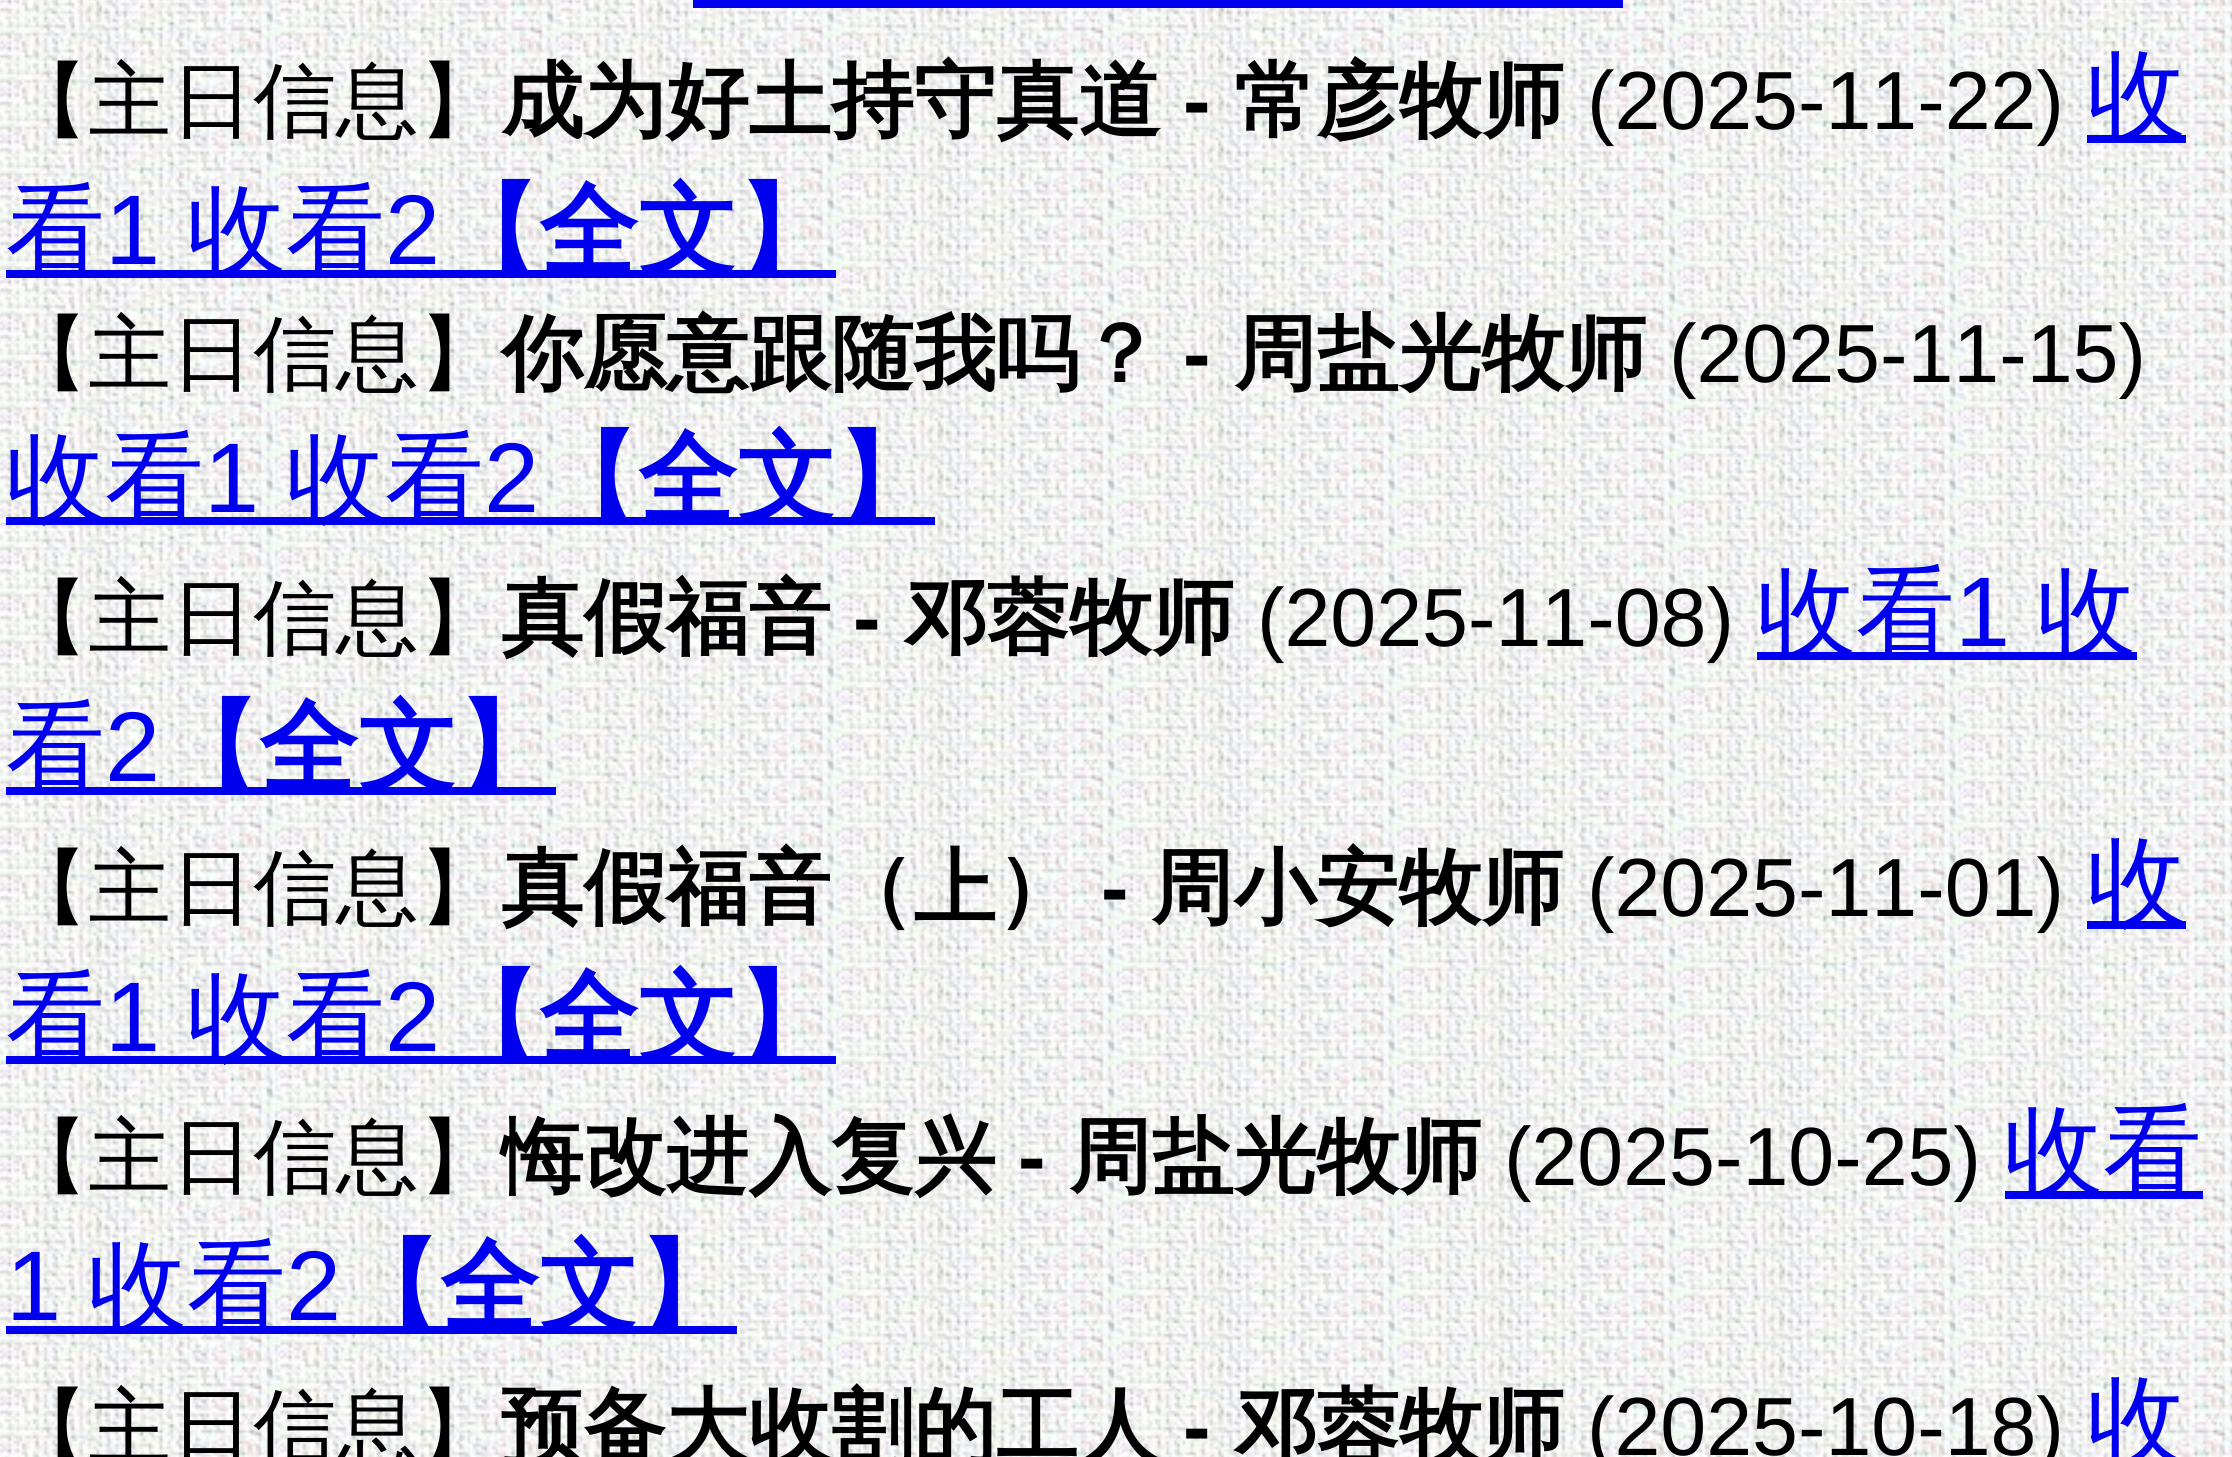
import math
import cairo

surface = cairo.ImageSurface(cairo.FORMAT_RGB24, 2232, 1457)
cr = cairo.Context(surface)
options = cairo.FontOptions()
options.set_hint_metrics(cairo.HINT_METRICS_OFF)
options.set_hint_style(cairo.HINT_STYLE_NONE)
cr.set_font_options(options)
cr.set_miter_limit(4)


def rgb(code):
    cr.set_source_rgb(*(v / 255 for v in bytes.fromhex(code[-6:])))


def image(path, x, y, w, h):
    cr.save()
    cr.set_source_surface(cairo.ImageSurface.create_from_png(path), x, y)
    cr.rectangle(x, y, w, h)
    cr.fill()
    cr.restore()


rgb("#ffffff")
cr.paint()
image("img/1.png", 0, 0, 2232, 1457)
for x, y, w, h, color in [
    (693, 0, 930, 8, "#0000ee"),
    (2087, 135, 99, 8, "#0000ee"),
    (6, 270, 830, 8, "#0000ee"),
    (6, 517, 929, 8, "#0000ee"),
    (1757, 652, 380, 8, "#0000ee"),
    (6, 787, 550, 8, "#0000ee"),
    (2087, 921, 99, 8, "#0000ee"),
    (6, 1056, 830, 8, "#0000ee"),
    (2005, 1191, 198, 8, "#0000ee"),
    (6, 1326, 731, 8, "#0000ee"),
]:
    rgb(color)
    cr.rectangle(x, y, w, h)
    cr.fill()
cr.select_font_face("WenQuanYi Zen Hei Medium")
cr.set_font_size(82.5)
rgb("#000000")
cr.move_to(6, 129)
cr.show_text("【主日信息】")
cr.select_font_face("WenQuanYi Zen Hei", cairo.FONT_SLANT_NORMAL, cairo.FONT_WEIGHT_BOLD)
cr.move_to(501, 129)
cr.show_text("成为好土持守真道")
cr.select_font_face("Liberation Sans", cairo.FONT_SLANT_NORMAL, cairo.FONT_WEIGHT_BOLD)
cr.move_to(1183, 129)
cr.show_text("-")
cr.select_font_face("WenQuanYi Zen Hei", cairo.FONT_SLANT_NORMAL, cairo.FONT_WEIGHT_BOLD)
cr.move_to(1234, 129)
cr.show_text("常彦牧师")
cr.select_font_face("Liberation Sans")
cr.move_to(1587, 129)
cr.show_text("(2025-11-22)")
cr.select_font_face("WenQuanYi Zen Hei Medium")
cr.set_font_size(99)
rgb("#0000ee")
cr.move_to(2087, 129)
cr.show_text("收")
cr.move_to(6, 264)
cr.show_text("看")
cr.select_font_face("Liberation Sans")
cr.move_to(105, 264)
cr.show_text("1")
cr.select_font_face("WenQuanYi Zen Hei Medium")
cr.move_to(187, 264)
cr.show_text("收看")
cr.select_font_face("Liberation Sans")
cr.move_to(385, 264)
cr.show_text("2")
cr.select_font_face("WenQuanYi Zen Hei", cairo.FONT_SLANT_NORMAL, cairo.FONT_WEIGHT_BOLD)
cr.move_to(440, 264)
cr.show_text("【全文】")
cr.select_font_face("WenQuanYi Zen Hei Medium")
cr.set_font_size(82.5)
rgb("#000000")
cr.move_to(6, 382)
cr.show_text("【主日信息】")
cr.select_font_face("WenQuanYi Zen Hei", cairo.FONT_SLANT_NORMAL, cairo.FONT_WEIGHT_BOLD)
cr.move_to(501, 382)
cr.show_text("你愿意跟随我吗？")
cr.select_font_face("Liberation Sans", cairo.FONT_SLANT_NORMAL, cairo.FONT_WEIGHT_BOLD)
cr.move_to(1183, 382)
cr.show_text("-")
cr.select_font_face("WenQuanYi Zen Hei", cairo.FONT_SLANT_NORMAL, cairo.FONT_WEIGHT_BOLD)
cr.move_to(1234, 382)
cr.show_text("周盐光牧师")
cr.select_font_face("Liberation Sans")
cr.move_to(1669, 382)
cr.show_text("(2025-11-15)")
cr.select_font_face("WenQuanYi Zen Hei Medium")
cr.set_font_size(99)
rgb("#0000ee")
cr.move_to(6, 512)
cr.show_text("收看")
cr.select_font_face("Liberation Sans")
cr.move_to(204, 512)
cr.show_text("1")
cr.select_font_face("WenQuanYi Zen Hei Medium")
cr.move_to(286, 512)
cr.show_text("收看")
cr.select_font_face("Liberation Sans")
cr.move_to(484, 512)
cr.show_text("2")
cr.select_font_face("WenQuanYi Zen Hei", cairo.FONT_SLANT_NORMAL, cairo.FONT_WEIGHT_BOLD)
cr.move_to(539, 512)
cr.show_text("【全文】")
cr.select_font_face("WenQuanYi Zen Hei Medium")
cr.set_font_size(82.5)
rgb("#000000")
cr.move_to(6, 646)
cr.show_text("【主日信息】")
cr.select_font_face("WenQuanYi Zen Hei", cairo.FONT_SLANT_NORMAL, cairo.FONT_WEIGHT_BOLD)
cr.move_to(501, 646)
cr.show_text("真假福音")
cr.select_font_face("Liberation Sans", cairo.FONT_SLANT_NORMAL, cairo.FONT_WEIGHT_BOLD)
cr.move_to(853, 646)
cr.show_text("-")
cr.select_font_face("WenQuanYi Zen Hei", cairo.FONT_SLANT_NORMAL, cairo.FONT_WEIGHT_BOLD)
cr.move_to(904, 646)
cr.show_text("邓蓉牧师")
cr.select_font_face("Liberation Sans")
cr.move_to(1257, 646)
cr.show_text("(2025-11-08)")
cr.select_font_face("WenQuanYi Zen Hei Medium")
cr.set_font_size(99)
rgb("#0000ee")
cr.move_to(1757, 646)
cr.show_text("收看")
cr.select_font_face("Liberation Sans")
cr.move_to(1955, 646)
cr.show_text("1")
cr.select_font_face("WenQuanYi Zen Hei Medium")
cr.move_to(2037, 646)
cr.show_text("收")
cr.move_to(6, 781)
cr.show_text("看")
cr.select_font_face("Liberation Sans")
cr.move_to(105, 781)
cr.show_text("2")
cr.select_font_face("WenQuanYi Zen Hei", cairo.FONT_SLANT_NORMAL, cairo.FONT_WEIGHT_BOLD)
cr.move_to(160, 781)
cr.show_text("【全文】")
cr.select_font_face("WenQuanYi Zen Hei Medium")
cr.set_font_size(82.5)
rgb("#000000")
cr.move_to(6, 916)
cr.show_text("【主日信息】")
cr.select_font_face("WenQuanYi Zen Hei", cairo.FONT_SLANT_NORMAL, cairo.FONT_WEIGHT_BOLD)
cr.move_to(501, 916)
cr.show_text("真假福音（上）")
cr.select_font_face("Liberation Sans", cairo.FONT_SLANT_NORMAL, cairo.FONT_WEIGHT_BOLD)
cr.move_to(1101, 916)
cr.show_text("-")
cr.select_font_face("WenQuanYi Zen Hei", cairo.FONT_SLANT_NORMAL, cairo.FONT_WEIGHT_BOLD)
cr.move_to(1151, 916)
cr.show_text("周小安牧师")
cr.select_font_face("Liberation Sans")
cr.move_to(1587, 916)
cr.show_text("(2025-11-01)")
cr.select_font_face("WenQuanYi Zen Hei Medium")
cr.set_font_size(99)
rgb("#0000ee")
cr.move_to(2087, 916)
cr.show_text("收")
cr.move_to(6, 1051)
cr.show_text("看")
cr.select_font_face("Liberation Sans")
cr.move_to(105, 1051)
cr.show_text("1")
cr.select_font_face("WenQuanYi Zen Hei Medium")
cr.move_to(187, 1051)
cr.show_text("收看")
cr.select_font_face("Liberation Sans")
cr.move_to(385, 1051)
cr.show_text("2")
cr.select_font_face("WenQuanYi Zen Hei", cairo.FONT_SLANT_NORMAL, cairo.FONT_WEIGHT_BOLD)
cr.move_to(440, 1051)
cr.show_text("【全文】")
cr.select_font_face("WenQuanYi Zen Hei Medium")
cr.set_font_size(82.5)
rgb("#000000")
cr.move_to(6, 1185)
cr.show_text("【主日信息】")
cr.select_font_face("WenQuanYi Zen Hei", cairo.FONT_SLANT_NORMAL, cairo.FONT_WEIGHT_BOLD)
cr.move_to(501, 1185)
cr.show_text("悔改进入复兴")
cr.select_font_face("Liberation Sans", cairo.FONT_SLANT_NORMAL, cairo.FONT_WEIGHT_BOLD)
cr.move_to(1018, 1185)
cr.show_text("-")
cr.select_font_face("WenQuanYi Zen Hei", cairo.FONT_SLANT_NORMAL, cairo.FONT_WEIGHT_BOLD)
cr.move_to(1069, 1185)
cr.show_text("周盐光牧师")
cr.select_font_face("Liberation Sans")
cr.move_to(1504, 1185)
cr.show_text("(2025-10-25)")
cr.select_font_face("WenQuanYi Zen Hei Medium")
cr.set_font_size(99)
rgb("#0000ee")
cr.move_to(2004, 1185)
cr.show_text("收看")
cr.select_font_face("Liberation Sans")
cr.move_to(6, 1320)
cr.show_text("1")
cr.select_font_face("WenQuanYi Zen Hei Medium")
cr.move_to(88, 1320)
cr.show_text("收看")
cr.select_font_face("Liberation Sans")
cr.move_to(286, 1320)
cr.show_text("2")
cr.select_font_face("WenQuanYi Zen Hei", cairo.FONT_SLANT_NORMAL, cairo.FONT_WEIGHT_BOLD)
cr.move_to(341, 1320)
cr.show_text("【全文】")
cr.select_font_face("WenQuanYi Zen Hei Medium")
cr.set_font_size(82.5)
rgb("#000000")
cr.move_to(6, 1455)
cr.show_text("【主日信息】")
cr.select_font_face("WenQuanYi Zen Hei", cairo.FONT_SLANT_NORMAL, cairo.FONT_WEIGHT_BOLD)
cr.move_to(501, 1455)
cr.show_text("预备大收割的工人")
cr.select_font_face("Liberation Sans", cairo.FONT_SLANT_NORMAL, cairo.FONT_WEIGHT_BOLD)
cr.move_to(1183, 1455)
cr.show_text("-")
cr.select_font_face("WenQuanYi Zen Hei", cairo.FONT_SLANT_NORMAL, cairo.FONT_WEIGHT_BOLD)
cr.move_to(1234, 1455)
cr.show_text("邓蓉牧师")
cr.select_font_face("Liberation Sans")
cr.move_to(1587, 1455)
cr.show_text("(2025-10-18)")
cr.select_font_face("WenQuanYi Zen Hei Medium")
cr.set_font_size(99)
rgb("#0000ee")
cr.move_to(2087, 1455)
cr.show_text("收")
surface.write_to_png("page.png")
